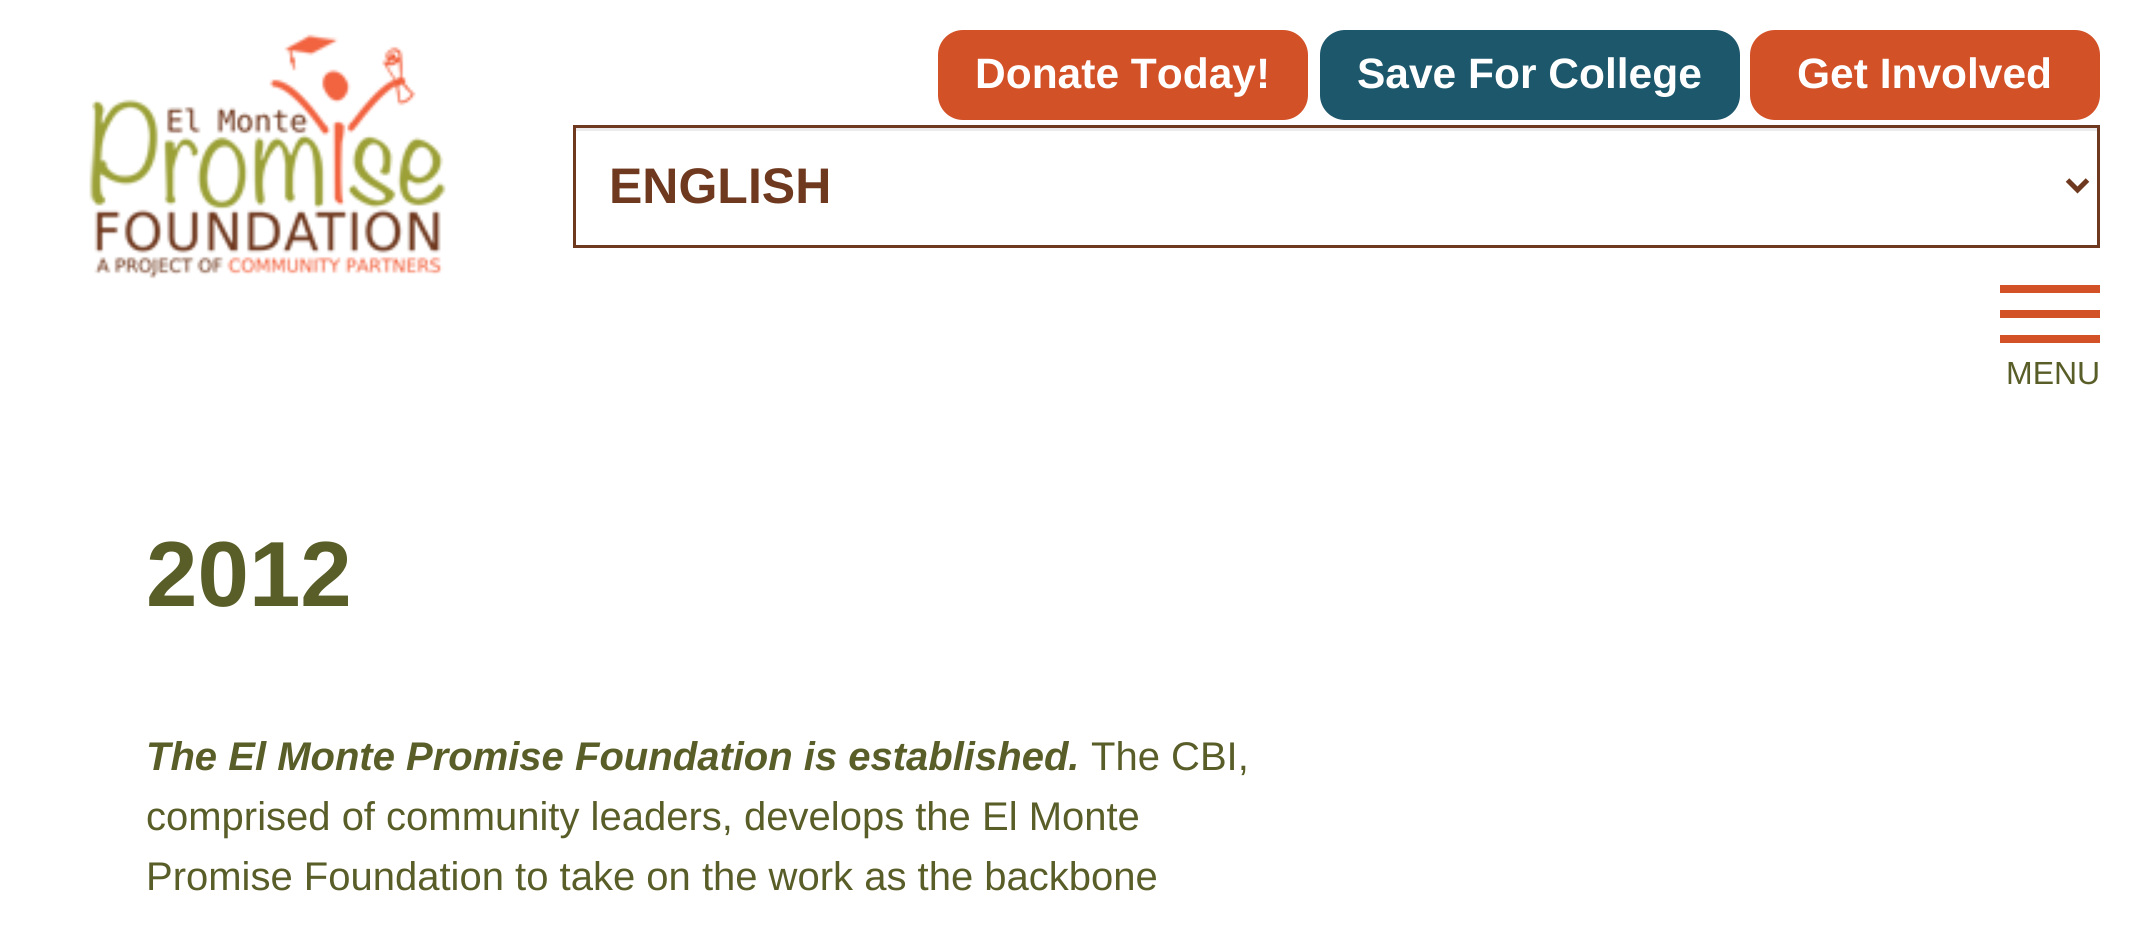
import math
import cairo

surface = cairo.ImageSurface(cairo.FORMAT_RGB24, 2136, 941)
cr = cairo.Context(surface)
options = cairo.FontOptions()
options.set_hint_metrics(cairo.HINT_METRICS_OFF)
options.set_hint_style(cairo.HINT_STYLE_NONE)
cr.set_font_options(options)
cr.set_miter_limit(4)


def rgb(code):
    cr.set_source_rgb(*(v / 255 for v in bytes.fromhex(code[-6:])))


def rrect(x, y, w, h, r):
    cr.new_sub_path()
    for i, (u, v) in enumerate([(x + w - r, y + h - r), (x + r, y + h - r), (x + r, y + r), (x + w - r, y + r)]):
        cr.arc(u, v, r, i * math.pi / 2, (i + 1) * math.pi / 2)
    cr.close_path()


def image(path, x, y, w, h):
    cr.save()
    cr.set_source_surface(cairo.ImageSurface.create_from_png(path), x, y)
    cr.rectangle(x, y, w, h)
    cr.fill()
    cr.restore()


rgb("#ffffff")
cr.paint()
image("img/1.png", 89, 34, 357, 245)
rgb("#d35127")
rrect(938, 30, 370, 90, 25)
cr.fill()
rgb("#1c576c")
rrect(1320, 30, 420, 90, 25)
cr.fill()
rgb("#d35127")
rrect(1750, 30, 350, 90, 25)
cr.fill()
rgb("#ececec")
cr.rectangle(575, 128, 1523, 3)
cr.fill()
cr.rectangle(574.5, 126.5, 1524, 120)
rgb("#6f391f")
cr.set_line_width(3)
cr.stroke()
cr.new_path()
cr.move_to(2067.5, 180)
cr.line_to(2077.5, 190)
cr.line_to(2087.5, 180)
cr.set_line_width(5)
cr.stroke()
for x, y, w, h, color in [
    (2000, 285, 100, 8, "#d35127"),
    (2000, 310, 100, 8, "#d35127"),
    (2000, 335, 100, 8, "#d35127"),
]:
    rgb(color)
    cr.rectangle(x, y, w, h)
    cr.fill()
cr.select_font_face("Liberation Sans", cairo.FONT_SLANT_NORMAL, cairo.FONT_WEIGHT_BOLD)
cr.set_font_size(42.5)
rgb("#ffffff")
for x, y, s in [
    (975, 88, "Donate Today!"),
    (1357, 88, "Save For College"),
    (1797, 88, "Get Involved"),
]:
    cr.move_to(x, y)
    cr.show_text(s)
cr.set_font_size(50)
rgb("#6f391f")
cr.move_to(609, 203)
cr.show_text("ENGLISH")
cr.select_font_face("Liberation Sans")
cr.set_font_size(32)
rgb("#595d28")
cr.move_to(2006, 384)
cr.show_text("MENU")
cr.select_font_face("Liberation Sans", cairo.FONT_SLANT_NORMAL, cairo.FONT_WEIGHT_BOLD)
cr.set_font_size(92.5)
cr.move_to(146, 606)
cr.show_text("2012")
cr.select_font_face("Liberation Sans", cairo.FONT_SLANT_ITALIC, cairo.FONT_WEIGHT_BOLD)
cr.set_font_size(40)
cr.move_to(146, 770)
cr.show_text("The El Monte Promise Foundation is established.")
cr.select_font_face("Liberation Sans")
for x, y, s in [
    (1091, 770, "The CBI,"),
    (146, 830, "comprised of community leaders, develops the El Monte"),
    (146, 890, "Promise Foundation to take on the work as the backbone"),
]:
    cr.move_to(x, y)
    cr.show_text(s)
surface.write_to_png("page.png")
